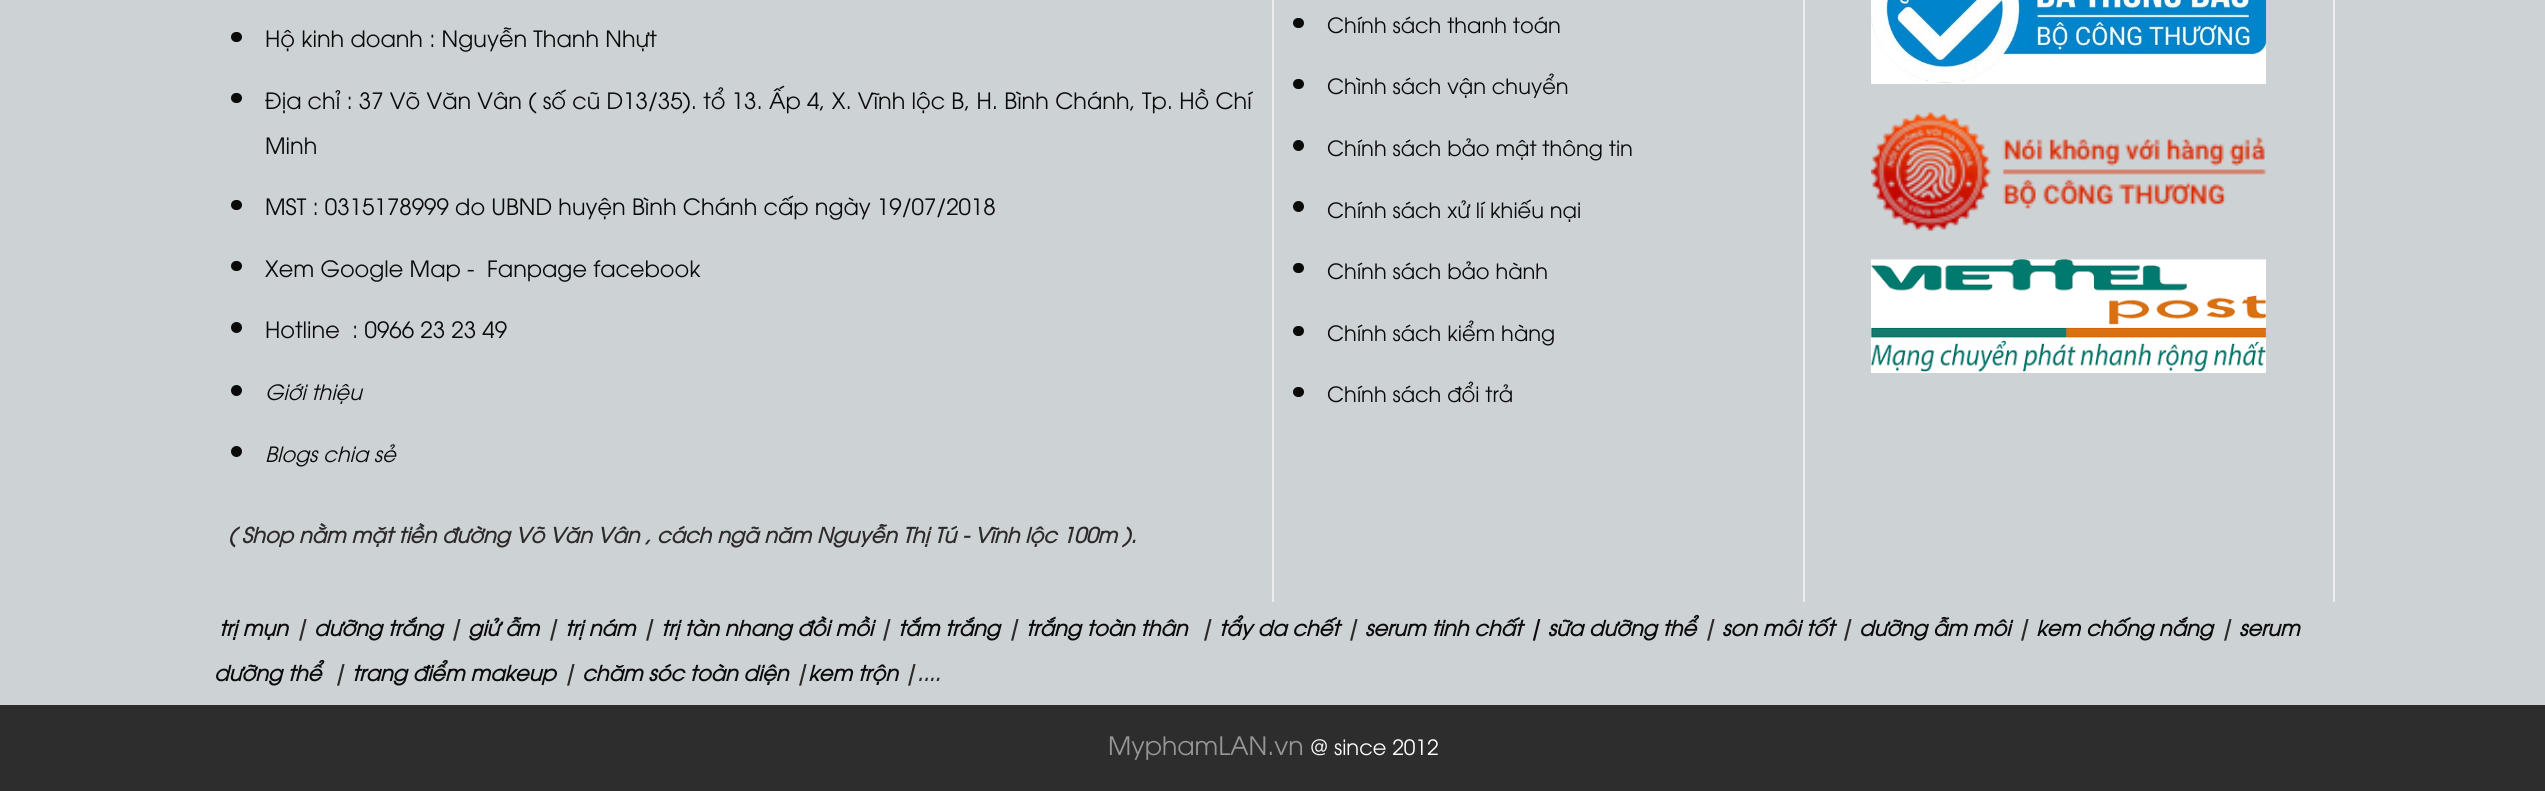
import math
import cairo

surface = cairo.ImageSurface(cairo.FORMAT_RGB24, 2545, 791)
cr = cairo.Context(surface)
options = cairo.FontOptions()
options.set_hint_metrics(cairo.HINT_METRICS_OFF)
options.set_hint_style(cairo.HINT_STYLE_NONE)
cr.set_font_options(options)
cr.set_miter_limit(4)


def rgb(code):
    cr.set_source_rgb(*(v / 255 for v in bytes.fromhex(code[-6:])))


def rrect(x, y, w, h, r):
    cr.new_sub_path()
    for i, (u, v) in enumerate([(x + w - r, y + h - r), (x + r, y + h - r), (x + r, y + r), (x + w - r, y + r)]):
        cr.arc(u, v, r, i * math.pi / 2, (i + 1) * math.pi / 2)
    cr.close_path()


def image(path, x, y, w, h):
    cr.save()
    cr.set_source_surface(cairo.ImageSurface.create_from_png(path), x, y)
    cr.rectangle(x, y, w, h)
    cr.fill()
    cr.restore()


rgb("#2d2d2d")
cr.paint()
rgb("#cdd2d5")
cr.rectangle(0, 0, 2545, 705)
cr.fill()
rgb("#ececec")
cr.rectangle(1272, 0, 2, 602)
cr.fill()
rgb("#0a0a0a")
rrect(231, 32, 11, 10, 5)
cr.fill()
rrect(231, 93, 11, 10, 5)
cr.fill()
rrect(231, 200, 11, 10, 5)
cr.fill()
rrect(231, 261, 11, 10, 5)
cr.fill()
cr.arc(236.5, 327.5, 5.5, 0, 2 * math.pi)
cr.fill()
cr.arc(236.5, 390.5, 5.5, 0, 2 * math.pi)
cr.fill()
cr.arc(236.5, 451.5, 5.5, 0, 2 * math.pi)
cr.fill()
rgb("#ececec")
cr.rectangle(1803, 0, 2, 602)
cr.fill()
rgb("#0a0a0a")
rrect(1293, 18, 11, 10, 5)
cr.fill()
rrect(1293, 79, 11, 10, 5)
cr.fill()
cr.arc(1298.5, 145.5, 5.5, 0, 2 * math.pi)
cr.fill()
cr.arc(1298.5, 206.5, 5.5, 0, 2 * math.pi)
cr.fill()
rrect(1293, 263, 11, 10, 5)
cr.fill()
rrect(1293, 326, 11, 10, 5)
cr.fill()
rrect(1293, 387, 11, 10, 5)
cr.fill()
rgb("#ececec")
cr.rectangle(2333, 0, 2, 602)
cr.fill()
image("img/1.png", 1871, 0, 396, 84)
image("img/2.png", 1870, 112, 396, 120)
image("img/3.png", 1870, 259, 397, 114)
cr.select_font_face("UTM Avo")
cr.set_font_size(22.4)
rgb("#0a0a0a")
for x, y, s in [
    (265, 47, "Hộ kinh doanh : Nguyễn Thanh Nhựt"),
    (265, 109, "Địa chỉ : 37 Võ Văn Vân ( số cũ D13/35). tổ 13. Ấp 4, X. Vĩnh lộc B, H. Bình Chánh, Tp. Hồ Chí"),
    (265, 154, "Minh"),
    (265, 215, "MST : 0315178999 do UBND huyện Bình Chánh cấp ngày 19/07/2018"),
    (265, 277, "Xem Google Map"),
    (467, 277, "-"),
    (487, 277, "Fanpage facebook"),
    (265, 338, "Hotline  : 0966 23 23 49"),
]:
    cr.move_to(x, y)
    cr.show_text(s)
cr.select_font_face("UTM Avo", cairo.FONT_SLANT_ITALIC)
cr.set_font_size(21)
cr.move_to(265, 400)
cr.show_text("Giới thiệu")
cr.move_to(265, 462)
cr.show_text("Blogs chia sẻ")
cr.select_font_face("UTM Avo", cairo.FONT_SLANT_ITALIC, cairo.FONT_WEIGHT_BOLD)
rgb("#2d2929")
cr.move_to(228, 543)
cr.show_text("( Shop nằm mặt tiền đường Võ Văn Vân , cách ngã năm Nguyễn Thị Tú - Vĩnh lộc 100m ).")
cr.select_font_face("UTM Avo")
rgb("#0a0a0a")
for x, y, s in [
    (1327, 33, "Chính sách thanh toán"),
    (1327, 94, "Chình sách vận chuyển"),
    (1327, 156, "Chính sách bảo mật thông tin"),
    (1327, 218, "Chính sách xử lí khiếu nại"),
    (1327, 279, "Chính sách bảo hành"),
    (1327, 341, "Chính sách kiểm hàng"),
    (1327, 402, "Chính sách đổi trả"),
]:
    cr.move_to(x, y)
    cr.show_text(s)
cr.select_font_face("UTM Avo", cairo.FONT_SLANT_ITALIC, cairo.FONT_WEIGHT_BOLD)
cr.move_to(219, 636)
cr.show_text("trị mụn")
rgb("#2d2929")
cr.move_to(294, 636)
cr.show_text("|")
rgb("#0a0a0a")
cr.move_to(314, 636)
cr.show_text("dưỡng trắng")
rgb("#2d2929")
cr.move_to(448, 636)
cr.show_text("|")
rgb("#0a0a0a")
cr.move_to(468, 636)
cr.show_text("giử ẫm")
rgb("#2d2929")
cr.move_to(545, 636)
cr.show_text("|")
rgb("#0a0a0a")
cr.move_to(565, 636)
cr.show_text("trị nám")
rgb("#2d2929")
cr.move_to(641, 636)
cr.show_text("|")
rgb("#0a0a0a")
cr.move_to(661, 636)
cr.show_text("trị tàn nhang đồi mồi")
rgb("#2d2929")
cr.move_to(878, 636)
cr.show_text("|")
rgb("#0a0a0a")
cr.move_to(898, 636)
cr.show_text("tắm trắng")
rgb("#2d2929")
cr.move_to(1006, 636)
cr.show_text("|")
rgb("#0a0a0a")
cr.move_to(1026, 636)
cr.show_text("trắng toàn thân")
rgb("#2d2929")
cr.move_to(1199, 636)
cr.show_text("|")
rgb("#0a0a0a")
cr.move_to(1219, 636)
cr.show_text("tẩy da chết")
rgb("#2d2929")
cr.move_to(1345, 636)
cr.show_text("|")
rgb("#0a0a0a")
cr.move_to(1365, 636)
cr.show_text("serum tinh chất | sữa dưỡng thể")
rgb("#2d2929")
cr.move_to(1702, 636)
cr.show_text("|")
rgb("#0a0a0a")
cr.move_to(1722, 636)
cr.show_text("son môi tốt")
rgb("#2d2929")
cr.move_to(1839, 636)
cr.show_text("|")
rgb("#0a0a0a")
cr.move_to(1859, 636)
cr.show_text("dưỡng ẫm môi")
rgb("#2d2929")
cr.move_to(2016, 636)
cr.show_text("|")
rgb("#0a0a0a")
cr.move_to(2036, 636)
cr.show_text("kem chống nắng")
rgb("#2d2929")
cr.move_to(2219, 636)
cr.show_text("|")
rgb("#0a0a0a")
cr.move_to(2239, 636)
cr.show_text("serum")
cr.move_to(214, 681)
cr.show_text("dưỡng thể")
rgb("#2d2929")
cr.move_to(332, 681)
cr.show_text("|")
rgb("#0a0a0a")
cr.move_to(352, 681)
cr.show_text("trang điểm makeup")
rgb("#2d2929")
cr.move_to(562, 681)
cr.show_text("|")
rgb("#0a0a0a")
cr.move_to(582, 681)
cr.show_text("chăm sóc toàn diện")
rgb("#2d2929")
cr.move_to(794, 681)
cr.show_text("|")
rgb("#0a0a0a")
cr.move_to(808, 681)
cr.show_text("kem trộn")
rgb("#2d2929")
cr.move_to(903, 681)
cr.show_text("|....")
cr.select_font_face("UTM Avo")
cr.set_font_size(25.25)
rgb("#969696")
cr.move_to(1108, 755)
cr.show_text("MyphamLAN.vn")
cr.set_font_size(21)
rgb("#ffffff")
cr.move_to(1310, 755)
cr.show_text("@ since 2012")
surface.write_to_png("page.png")
